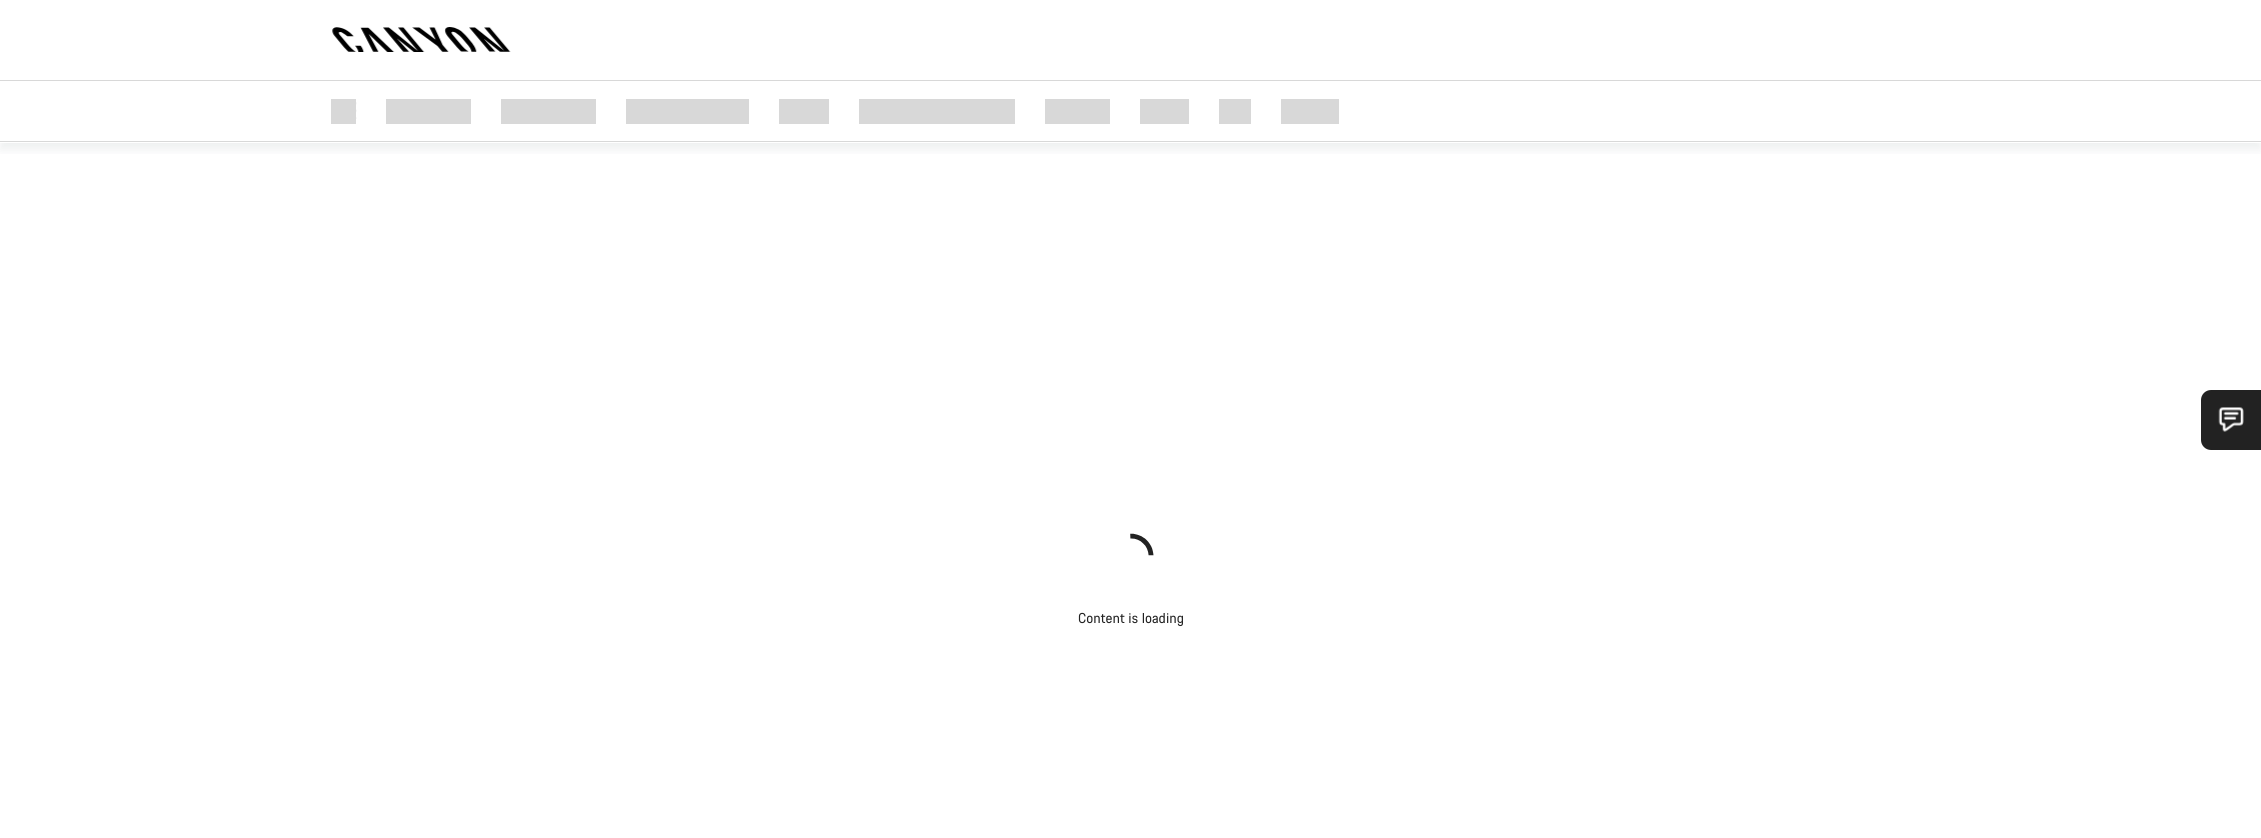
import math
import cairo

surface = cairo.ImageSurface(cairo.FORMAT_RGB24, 2261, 838)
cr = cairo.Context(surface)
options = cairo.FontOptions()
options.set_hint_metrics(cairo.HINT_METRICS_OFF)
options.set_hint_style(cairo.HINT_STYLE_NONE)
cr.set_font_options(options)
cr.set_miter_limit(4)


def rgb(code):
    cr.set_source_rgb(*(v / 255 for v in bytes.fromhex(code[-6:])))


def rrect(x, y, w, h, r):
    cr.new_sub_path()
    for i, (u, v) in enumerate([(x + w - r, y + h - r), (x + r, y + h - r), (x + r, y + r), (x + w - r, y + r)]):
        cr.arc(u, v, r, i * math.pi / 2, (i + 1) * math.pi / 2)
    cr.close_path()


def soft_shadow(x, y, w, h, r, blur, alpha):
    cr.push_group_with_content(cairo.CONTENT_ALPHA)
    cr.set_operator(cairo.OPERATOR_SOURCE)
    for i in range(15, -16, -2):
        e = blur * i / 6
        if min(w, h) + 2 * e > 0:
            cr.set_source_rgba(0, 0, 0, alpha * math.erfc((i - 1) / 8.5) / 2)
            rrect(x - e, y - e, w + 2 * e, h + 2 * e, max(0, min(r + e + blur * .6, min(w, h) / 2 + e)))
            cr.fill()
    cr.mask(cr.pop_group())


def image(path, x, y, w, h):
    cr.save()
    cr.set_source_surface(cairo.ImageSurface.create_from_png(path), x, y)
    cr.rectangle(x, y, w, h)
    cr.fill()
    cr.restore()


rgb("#ffffff")
cr.paint()
cr.save()
cr.rectangle(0, 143, 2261, 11)
cr.clip()
rgb("#5b6871")
soft_shadow(0, 8, 2261, 142, 0, 5, 0.1)
cr.restore()
rgb("#d8d8d8")
cr.rectangle(0, 80, 2261, 1)
cr.fill()
image("img/1.png", 332, 27, 179, 25)
for x, y, w, h, color in [
    (0, 142, 2261, 1, "#ffffff"),
    (0, 141, 2261, 1, "#d8d8d8"),
    (331, 99, 25, 25, "#d8d8d8"),
]:
    rgb(color)
    cr.rectangle(x, y, w, h)
    cr.fill()
image("img/2.png", 356, 102, 1, 17)
for x, y, w, h, color in [
    (386, 99, 85, 25, "#d8d8d8"),
    (501, 99, 95, 25, "#d8d8d8"),
    (626, 99, 123, 25, "#d8d8d8"),
    (779, 99, 50, 25, "#d8d8d8"),
    (859, 99, 156, 25, "#d8d8d8"),
    (1045, 99, 65, 25, "#d8d8d8"),
    (1140, 99, 49, 25, "#d8d8d8"),
    (1219, 99, 32, 25, "#d8d8d8"),
    (1281, 99, 58, 25, "#d8d8d8"),
]:
    rgb(color)
    cr.rectangle(x, y, w, h)
    cr.fill()
rgb("#222222")
cr.new_path()
cr.move_to(2211, 390)
cr.line_to(2261, 390)
cr.line_to(2261, 450)
cr.line_to(2211, 450)
cr.curve_to(2205.5, 450, 2201, 445.5, 2201, 440)
cr.line_to(2201, 400)
cr.curve_to(2201, 394.5, 2205.5, 390, 2211, 390)
cr.close_path()
cr.fill()
image("img/3.png", 2218, 407, 26, 25)
image("img/4.png", 1130, 533, 24, 23)
cr.select_font_face("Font")
cr.set_font_size(15)
cr.move_to(1078, 623)
cr.show_text("Content is loading")
surface.write_to_png("page.png")
